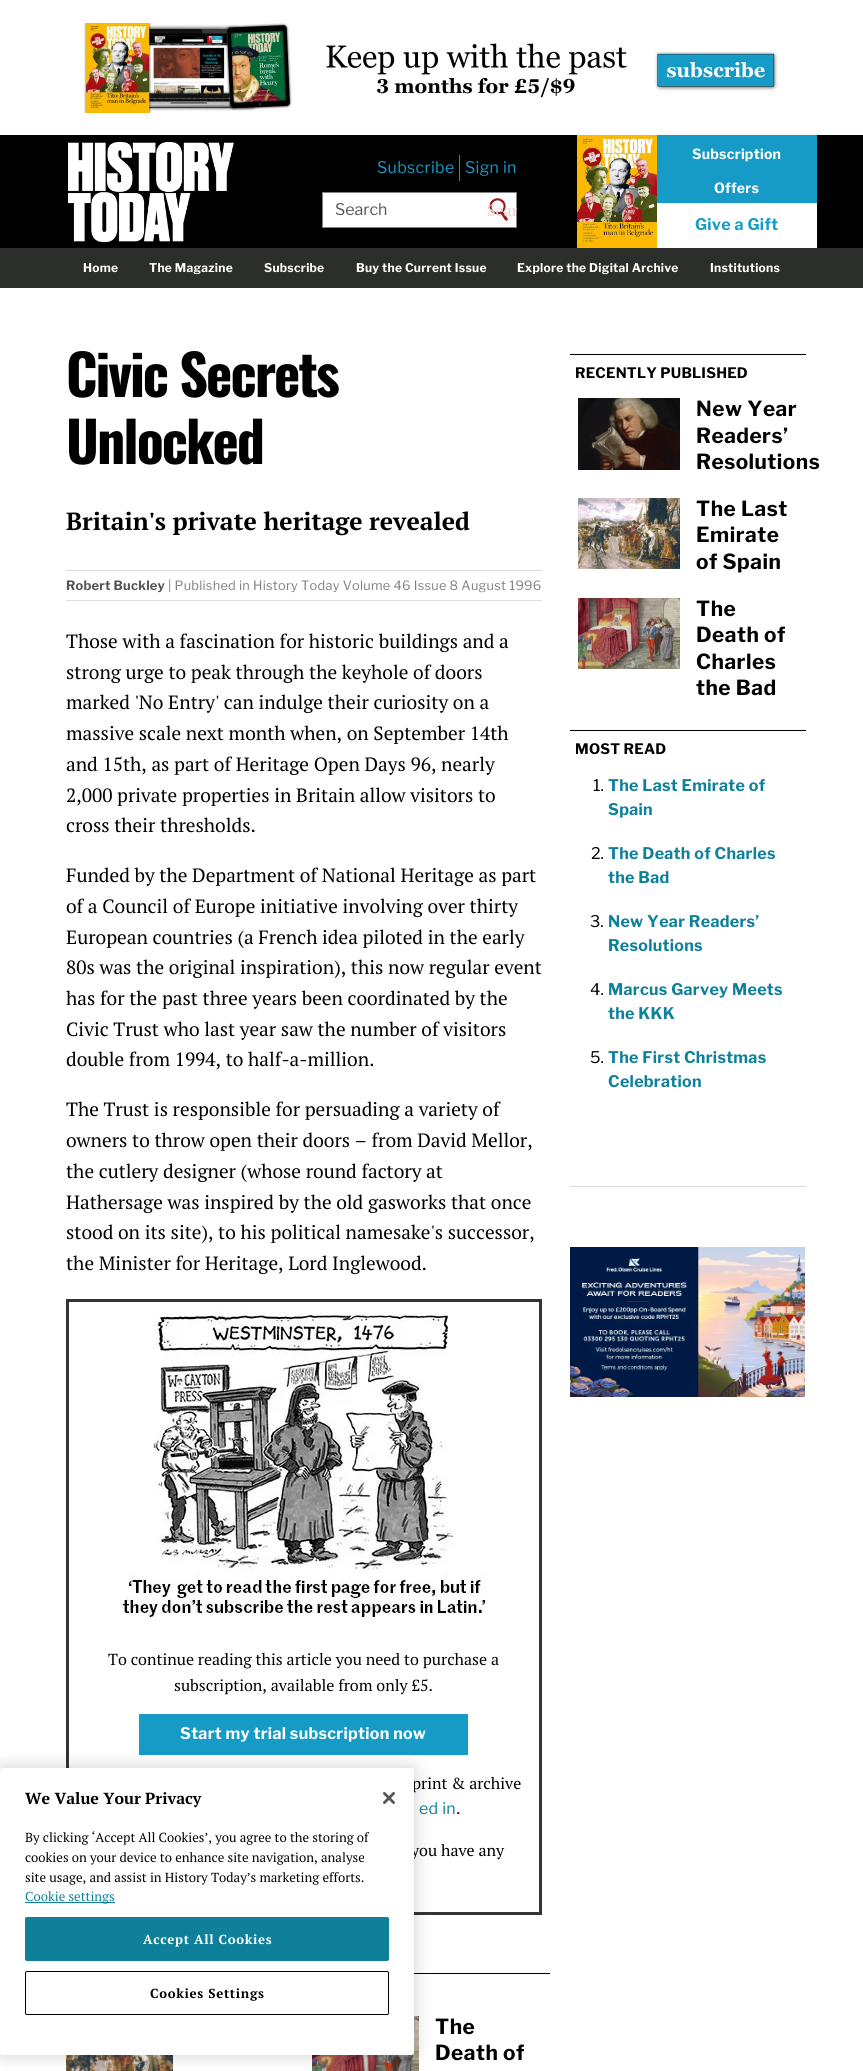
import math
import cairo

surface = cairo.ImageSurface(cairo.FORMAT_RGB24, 863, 2071)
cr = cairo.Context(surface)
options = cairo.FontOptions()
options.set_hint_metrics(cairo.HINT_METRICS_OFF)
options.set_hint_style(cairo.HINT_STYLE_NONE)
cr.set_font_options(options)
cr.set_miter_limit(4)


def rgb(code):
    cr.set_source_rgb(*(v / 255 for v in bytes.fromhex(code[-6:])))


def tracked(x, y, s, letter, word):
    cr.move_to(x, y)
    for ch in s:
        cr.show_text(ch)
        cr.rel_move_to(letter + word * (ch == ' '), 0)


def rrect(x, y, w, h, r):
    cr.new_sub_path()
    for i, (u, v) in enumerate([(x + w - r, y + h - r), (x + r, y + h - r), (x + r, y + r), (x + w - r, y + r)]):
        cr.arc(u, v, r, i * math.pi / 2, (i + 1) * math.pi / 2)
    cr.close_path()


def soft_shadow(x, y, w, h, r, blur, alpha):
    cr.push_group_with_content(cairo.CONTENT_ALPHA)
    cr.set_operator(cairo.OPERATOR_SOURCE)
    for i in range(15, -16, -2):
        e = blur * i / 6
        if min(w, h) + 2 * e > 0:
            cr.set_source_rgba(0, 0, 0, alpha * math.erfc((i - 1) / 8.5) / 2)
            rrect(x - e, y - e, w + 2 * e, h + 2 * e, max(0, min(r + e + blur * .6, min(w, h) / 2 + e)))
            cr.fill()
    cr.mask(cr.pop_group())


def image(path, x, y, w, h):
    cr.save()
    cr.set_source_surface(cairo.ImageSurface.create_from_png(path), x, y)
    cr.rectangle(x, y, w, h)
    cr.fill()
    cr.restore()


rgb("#ffffff")
cr.paint()
image("img/1.png", 84, 23, 694, 90)
rgb("#000000")
cr.rectangle(0, 135, 863, 113)
cr.fill()
image("img/2.png", 68, 142, 166, 100)
rgb("#169bc7")
cr.rectangle(459, 155, 1, 26)
cr.fill()
image("img/3.png", 577, 135, 80, 113)
cr.rectangle(657, 135, 160, 68)
cr.fill()
rgb("#ffffff")
cr.rectangle(657, 203, 160, 45)
cr.fill()
cr.rectangle(322.5, 192.5, 194, 35)
cr.fill_preserve()
rgb("#808080")
cr.set_line_width(1)
cr.stroke()
image("img/4.png", 489, 198, 19, 23)
for x, y, w, h, color in [
    (0, 248, 863, 40, "#2c2e2c"),
    (66, 570, 476, 1, "#dddddd"),
    (66, 600, 476, 1, "#dddddd"),
]:
    rgb(color)
    cr.rectangle(x, y, w, h)
    cr.fill()
cr.rectangle(67.5, 1300.5, 473, 613)
rgb("#333333")
cr.set_line_width(3)
cr.stroke()
image("img/5.png", 120, 1310, 368, 311)
rgb("#169bc7")
cr.rectangle(139, 1714, 329, 41)
cr.fill()
rgb("#000000")
cr.rectangle(414, 1973, 136, 1)
cr.fill()
image("img/6.png", 312, 2016, 107, 55)
image("img/7.png", 66, 2055, 107, 16)
cr.rectangle(570, 354, 236, 1)
cr.fill()
image("img/8.png", 578, 398, 102, 72)
image("img/9.png", 578, 498, 102, 71)
image("img/10.png", 578, 598, 102, 71)
rgb("#dddddd")
cr.rectangle(570, 1186, 236, 1)
cr.fill()
rgb("#000000")
cr.rectangle(570, 730, 236, 1)
cr.fill()
image("img/11.png", 570, 1247, 235, 150)
rgb("#000000")
soft_shadow(0, 1768, 414, 287, 2.5, 9, 0.2)
cr.select_font_face("Libre Franklin")
cr.set_font_size(16)
rgb("#169bc7")
tracked(377, 173, "Subscribe", 0.3, 0)
tracked(465, 173, "Sign in", 0.3, 0)
cr.select_font_face("Libre Franklin", cairo.FONT_SLANT_NORMAL, cairo.FONT_WEIGHT_BOLD)
cr.set_font_size(14)
rgb("#ffffff")
tracked(692, 159, "Subscription", 0.25, 0)
tracked(714, 193, "Offers", 0.25, 0)
cr.set_font_size(16)
rgb("#169bc7")
tracked(695, 230, "Give a Gift", 0.3, 0)
cr.select_font_face("Libre Franklin")
rgb("#555555")
cr.move_to(335, 215)
cr.show_text("Search")
cr.save()
cr.rectangle(481, 192, 36, 36)
cr.clip()
cr.select_font_face("PT Serif")
rgb("#e8cfcf")
cr.move_to(487, 216)
cr.show_text("Sear")
cr.restore()
cr.select_font_face("Libre Franklin", cairo.FONT_SLANT_NORMAL, cairo.FONT_WEIGHT_BOLD)
cr.set_font_size(12)
rgb("#ffffff")
for x, y, s in [
    (83, 272, "Home"),
    (149, 272, "The Magazine"),
    (264, 272, "Subscribe"),
    (356, 272, "Buy the Current Issue"),
    (517, 272, "Explore the Digital Archive"),
    (710, 272, "Institutions"),
]:
    tracked(x, y, s, 0.25, 0)
cr.select_font_face("Oswald", cairo.FONT_SLANT_NORMAL, cairo.FONT_WEIGHT_BOLD)
cr.set_font_size(56)
rgb("#000000")
tracked(66, 397, "Civic Secrets", -2, 0)
tracked(66, 464, "Unlocked", -2, 0)
cr.select_font_face("PT Serif", cairo.FONT_SLANT_NORMAL, cairo.FONT_WEIGHT_BOLD)
cr.set_font_size(24.75)
cr.move_to(66, 530)
cr.show_text("Britain's private heritage revealed")
cr.select_font_face("Libre Franklin", cairo.FONT_SLANT_NORMAL, cairo.FONT_WEIGHT_BOLD)
cr.set_font_size(12.8)
rgb("#555555")
tracked(66, 590, "Robert Buckley", 0.25, 0)
cr.select_font_face("Libre Franklin")
rgb("#808080")
tracked(168, 590, "| Published in History Today Volume 46 Issue 8 August 1996", 0.25, 0)
cr.select_font_face("PT Serif")
cr.set_font_size(19.2)
rgb("#000000")
for x, y, s in [
    (66, 648, "Those with a fascination for historic buildings and a"),
    (66, 679, "strong urge to peak through the keyhole of doors"),
    (66, 709, "marked 'No Entry' can indulge their curiosity on a"),
    (66, 740, "massive scale next month when, on September 14th"),
    (66, 771, "and 15th, as part of Heritage Open Days 96, nearly"),
    (66, 802, "2,000 private properties in Britain allow visitors to"),
    (66, 832, "cross their thresholds."),
    (66, 882, "Funded by the Department of National Heritage as part"),
    (66, 913, "of a Council of Europe initiative involving over thirty"),
    (66, 944, "European countries (a French idea piloted in the early"),
    (66, 974, "80s was the original inspiration), this now regular event"),
    (66, 1005, "has for the past three years been coordinated by the"),
    (66, 1036, "Civic Trust who last year saw the number of visitors"),
    (66, 1066, "double from 1994, to half-a-million."),
    (66, 1116, "The Trust is responsible for persuading a variety of"),
    (66, 1147, "owners to throw open their doors – from David Mellor,"),
    (66, 1178, "the cutlery designer (whose round factory at"),
    (66, 1209, "Hathersage was inspired by the old gasworks that once"),
    (66, 1239, "stood on its site), to his political namesake's successor,"),
    (66, 1270, "the Minister for Heritage, Lord Inglewood."),
]:
    cr.move_to(x, y)
    cr.show_text(s)
cr.set_font_size(16)
cr.move_to(108, 1665)
cr.show_text("To continue reading this article you need to purchase a")
cr.move_to(174, 1691)
cr.show_text("subscription, available from only £5.")
cr.select_font_face("Libre Franklin", cairo.FONT_SLANT_NORMAL, cairo.FONT_WEIGHT_BOLD)
rgb("#ffffff")
tracked(180, 1739, "Start my trial subscription now", 0.3, 0)
cr.select_font_face("PT Serif")
rgb("#000000")
cr.move_to(412, 1789)
cr.show_text("print & archive")
cr.select_font_face("Libre Franklin")
rgb("#0e809a")
tracked(419, 1814, "ed in", 0.3, 0)
cr.select_font_face("PT Serif")
rgb("#000000")
cr.move_to(456, 1814)
cr.show_text(".")
cr.move_to(411, 1856)
cr.show_text("you have any")
cr.select_font_face("Libre Franklin", cairo.FONT_SLANT_NORMAL, cairo.FONT_WEIGHT_BOLD)
cr.set_font_size(20.75)
tracked(435, 2034, "The", 0.5, 0)
tracked(435, 2060, "Death of", 0.5, 0)
cr.set_font_size(14.4)
tracked(575, 378, "RECENTLY PUBLISHED", 0.25, 0)
cr.set_font_size(20.75)
for x, y, s in [
    (696, 416, "New Year"),
    (696, 443, "Readers’"),
    (696, 469, "Resolutions"),
    (696, 516, "The Last"),
    (696, 542, "Emirate"),
    (696, 569, "of Spain"),
    (696, 616, "The"),
    (696, 642, "Death of"),
    (696, 669, "Charles"),
    (696, 695, "the Bad"),
]:
    tracked(x, y, s, 0.5, 0)
cr.set_font_size(14.4)
tracked(575, 754, "MOST READ", 0.25, 0)
cr.select_font_face("Libre Franklin")
cr.set_font_size(16)
cr.move_to(593, 791)
cr.show_text("1.")
cr.select_font_face("Libre Franklin", cairo.FONT_SLANT_NORMAL, cairo.FONT_WEIGHT_BOLD)
rgb("#0e809a")
tracked(608, 791, "The Last Emirate of", 0.3, 0)
tracked(608, 815, "Spain", 0.3, 0)
cr.select_font_face("Libre Franklin")
rgb("#000000")
cr.move_to(591, 859)
cr.show_text("2.")
cr.select_font_face("Libre Franklin", cairo.FONT_SLANT_NORMAL, cairo.FONT_WEIGHT_BOLD)
rgb("#0e809a")
tracked(608, 859, "The Death of Charles", 0.3, 0)
tracked(608, 883, "the Bad", 0.3, 0)
cr.select_font_face("Libre Franklin")
rgb("#000000")
cr.move_to(590, 927)
cr.show_text("3.")
cr.select_font_face("Libre Franklin", cairo.FONT_SLANT_NORMAL, cairo.FONT_WEIGHT_BOLD)
rgb("#0e809a")
tracked(608, 927, "New Year Readers’", 0.3, 0)
tracked(608, 951, "Resolutions", 0.3, 0)
cr.select_font_face("Libre Franklin")
rgb("#000000")
cr.move_to(590, 995)
cr.show_text("4.")
cr.select_font_face("Libre Franklin", cairo.FONT_SLANT_NORMAL, cairo.FONT_WEIGHT_BOLD)
rgb("#0e809a")
tracked(608, 995, "Marcus Garvey Meets", 0.3, 0)
tracked(608, 1019, "the KKK", 0.3, 0)
cr.select_font_face("Libre Franklin")
rgb("#000000")
cr.move_to(590, 1063)
cr.show_text("5.")
cr.select_font_face("Libre Franklin", cairo.FONT_SLANT_NORMAL, cairo.FONT_WEIGHT_BOLD)
rgb("#0e809a")
tracked(608, 1063, "The First Christmas", 0.3, 0)
tracked(608, 1087, "Celebration", 0.3, 0)
rgb("#ffffff")
rrect(0, 1768, 414, 287, 2.5)
cr.fill()
cr.select_font_face("PT Serif", cairo.FONT_SLANT_NORMAL, cairo.FONT_WEIGHT_BOLD)
rgb("#000000")
cr.move_to(25, 1804)
cr.show_text("We Value Your Privacy")
cr.select_font_face("PT Serif")
cr.set_font_size(13.1)
for x, y, s in [
    (25, 1842, "By clicking ‘Accept All Cookies’, you agree to the storing of"),
    (25, 1862, "cookies on your device to enhance site navigation, analyse"),
    (25, 1882, "site usage, and assist in History Today’s marketing efforts."),
]:
    cr.move_to(x, y)
    cr.show_text(s)
rgb("#0e809a")
cr.rectangle(25, 1902, 90, 1)
cr.fill()
cr.move_to(25, 1901)
cr.show_text("Cookie settings")
image("img/12.png", 383, 1792, 12, 12)
rrect(25.5, 1917.5, 363, 43, 1.5)
cr.fill_preserve()
cr.set_line_width(1)
cr.stroke()
cr.select_font_face("PT Serif", cairo.FONT_SLANT_NORMAL, cairo.FONT_WEIGHT_BOLD)
rgb("#ffffff")
tracked(143, 1944, "Accept All Cookies", 0.7, 0)
rrect(25.5, 1971.5, 363, 43, 1.5)
rgb("#000000")
cr.stroke()
tracked(150, 1998, "Cookies Settings", 0.7, 0)
surface.write_to_png("page.png")
